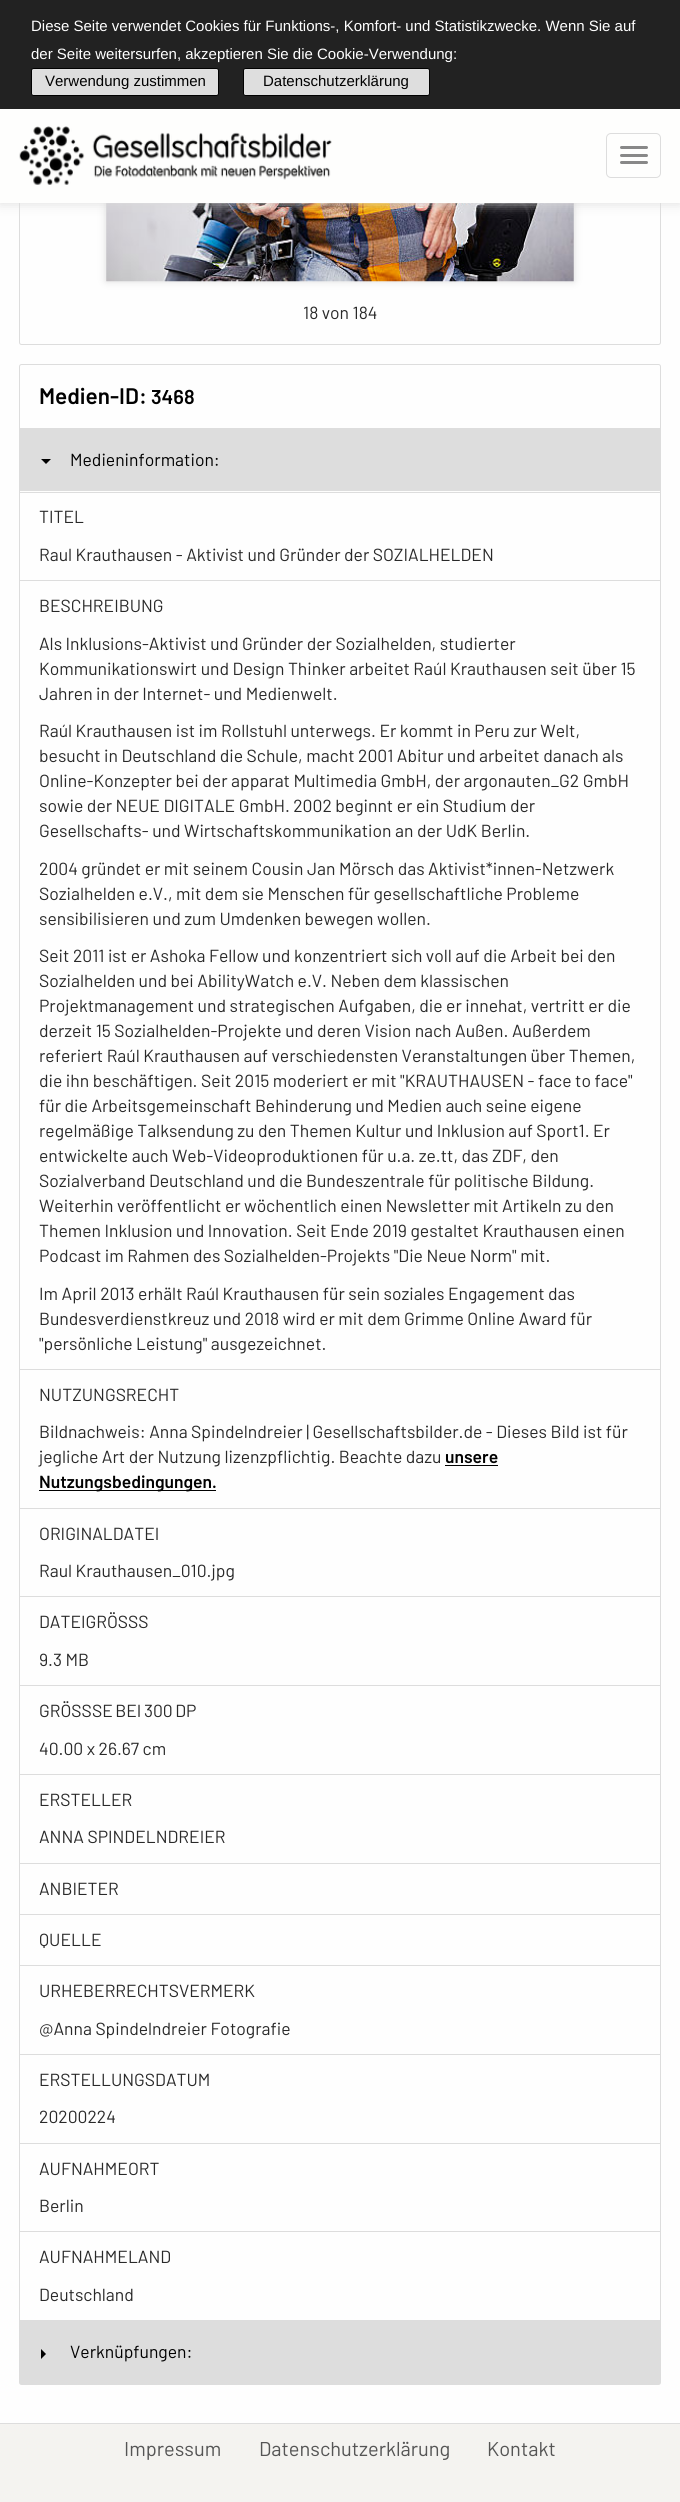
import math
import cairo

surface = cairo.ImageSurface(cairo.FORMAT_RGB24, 680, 2502)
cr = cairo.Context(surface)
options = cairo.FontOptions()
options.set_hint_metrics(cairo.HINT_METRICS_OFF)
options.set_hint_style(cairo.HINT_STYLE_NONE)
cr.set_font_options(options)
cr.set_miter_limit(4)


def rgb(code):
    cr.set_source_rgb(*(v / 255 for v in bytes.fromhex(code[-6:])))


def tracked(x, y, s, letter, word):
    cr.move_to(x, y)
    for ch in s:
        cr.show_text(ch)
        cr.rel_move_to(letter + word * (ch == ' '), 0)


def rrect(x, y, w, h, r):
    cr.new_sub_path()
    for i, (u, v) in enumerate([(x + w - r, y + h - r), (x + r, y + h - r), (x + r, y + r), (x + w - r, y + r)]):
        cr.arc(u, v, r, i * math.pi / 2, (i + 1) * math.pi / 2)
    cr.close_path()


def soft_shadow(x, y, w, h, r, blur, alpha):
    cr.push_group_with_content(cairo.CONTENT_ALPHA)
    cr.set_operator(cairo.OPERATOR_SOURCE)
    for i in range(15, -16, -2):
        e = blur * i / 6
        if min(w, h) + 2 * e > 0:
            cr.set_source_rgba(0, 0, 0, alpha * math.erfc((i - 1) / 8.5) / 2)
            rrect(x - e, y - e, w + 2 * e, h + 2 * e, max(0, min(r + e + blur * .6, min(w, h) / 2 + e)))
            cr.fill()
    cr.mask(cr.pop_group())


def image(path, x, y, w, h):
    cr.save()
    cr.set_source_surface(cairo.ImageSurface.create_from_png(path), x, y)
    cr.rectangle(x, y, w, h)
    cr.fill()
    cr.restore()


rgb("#f4f3f0")
cr.paint()
rgb("#fefefe")
cr.rectangle(0, 203, 680, 2220)
cr.fill()
rrect(19.5, -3.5, 641, 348, 2)
rgb("#dddddd")
cr.set_line_width(1)
cr.stroke()
rgb("#dddddd")
soft_shadow(106, -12, 468, 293, 0, 4, 1)
image("img/2.png", 106, 203, 468, 79)
soft_shadow(0, 109, 680, 94, 0, 6, 1)
rgb("#222222")
cr.rectangle(0, 0, 680, 109)
cr.fill()
rgb("#dedede")
rrect(31.5, 68.5, 187, 27, 2)
cr.fill_preserve()
rgb("#010101")
cr.stroke()
rgb("#dedede")
rrect(243.5, 68.5, 186, 27, 2)
cr.fill_preserve()
rgb("#010101")
cr.stroke()
rgb("#fefefd")
cr.rectangle(0, 109, 680, 94)
cr.fill()
image("img/1.png", 19, 126, 313, 59)
rrect(606.5, 133.5, 54, 44, 4.5)
rgb("#dddddd")
cr.stroke()
rgb("#888888")
rrect(620, 146, 28, 3, 1.5)
cr.fill()
rrect(620, 154, 28, 3, 1.5)
cr.fill()
rrect(620, 161, 28, 3, 1.5)
cr.fill()
rrect(19.5, 364.5, 641, 2020, 2)
rgb("#dddddd")
cr.stroke()
cr.rectangle(20, 428, 640, 65)
cr.fill()
rgb("#fefefd")
cr.rectangle(20, 491, 640, 1)
cr.fill()
rgb("#000000")
cr.new_path()
cr.move_to(41, 459)
cr.line_to(51, 459)
cr.line_to(46, 464)
cr.close_path()
cr.fill()
for x, y, w, h, color in [
    (20, 580, 640, 1, "#dddddd"),
    (20, 1369, 640, 1, "#dddddd"),
    (20, 1508, 640, 1, "#dddddd"),
    (445, 1465, 53, 1, "#010101"),
    (39, 1490, 177, 1, "#010101"),
    (20, 1596, 640, 1, "#dddddd"),
    (20, 1685, 640, 1, "#dddddd"),
    (20, 1774, 640, 1, "#dddddd"),
    (20, 1863, 640, 1, "#dddddd"),
    (20, 1914, 640, 1, "#dddddd"),
    (20, 1965, 640, 1, "#dddddd"),
    (20, 2054, 640, 1, "#dddddd"),
    (20, 2143, 640, 1, "#dddddd"),
    (20, 2231, 640, 1, "#dddddd"),
    (20, 2320, 640, 64, "#dddddd"),
]:
    rgb(color)
    cr.rectangle(x, y, w, h)
    cr.fill()
rgb("#000000")
cr.new_path()
cr.move_to(41, 2359)
cr.line_to(41, 2349)
cr.line_to(46, 2354)
cr.close_path()
cr.fill()
rgb("#dddddd")
cr.rectangle(0, 2423, 680, 1)
cr.fill()
cr.select_font_face("Liberation Sans")
cr.set_font_size(15)
rgb("#ffffff")
cr.move_to(31, 31)
cr.show_text("Diese Seite verwendet Cookies für Funktions-, Komfort- und Statistikzwecke. Wenn Sie auf")
cr.move_to(31, 59)
cr.show_text("der Seite weitersurfen, akzeptieren Sie die Cookie-Verwendung:")
rgb("#010101")
cr.move_to(45, 86)
cr.show_text("Verwendung zustimmen")
cr.move_to(263, 86)
cr.show_text("Datenschutzerklärung")
cr.select_font_face("Barlow")
cr.set_font_size(17.5)
rgb("#292929")
cr.move_to(303, 319)
cr.show_text("18 von 184")
cr.select_font_face("Barlow SemiBold")
cr.set_font_size(22.5)
rgb("#010101")
cr.move_to(39, 404)
cr.show_text("Medien-ID:")
cr.set_font_size(20)
cr.move_to(151, 404)
cr.show_text("3468")
cr.select_font_face("Barlow")
cr.set_font_size(17.5)
cr.move_to(70, 466)
cr.show_text("Medieninformation:")
rgb("#292929")
for x, y, s in [
    (39, 523, "TITEL"),
    (39, 561, "Raul Krauthausen - Aktivist und Gründer der SOZIALHELDEN"),
    (39, 612, "BESCHREIBUNG"),
    (39, 650, "Als Inklusions-Aktivist und Gründer der Sozialhelden, studierter"),
    (39, 675, "Kommunikationswirt und Design Thinker arbeitet Raúl Krauthausen seit über 15"),
    (39, 700, "Jahren in der Internet- und Medienwelt."),
    (39, 737, "Raúl Krauthausen ist im Rollstuhl unterwegs. Er kommt in Peru zur Welt,"),
    (39, 762, "besucht in Deutschland die Schule, macht 2001 Abitur und arbeitet danach als"),
    (39, 787, "Online-Konzepter bei der apparat Multimedia GmbH, der argonauten_G2 GmbH"),
    (39, 812, "sowie der NEUE DIGITALE GmbH. 2002 beginnt er ein Studium der"),
    (39, 837, "Gesellschafts- und Wirtschaftskommunikation an der UdK Berlin."),
    (39, 875, "2004 gründet er mit seinem Cousin Jan Mörsch das Aktivist*innen-Netzwerk"),
    (39, 900, "Sozialhelden e.V., mit dem sie Menschen für gesellschaftliche Probleme"),
    (39, 925, "sensibilisieren und zum Umdenken bewegen wollen."),
    (39, 962, "Seit 2011 ist er Ashoka Fellow und konzentriert sich voll auf die Arbeit bei den"),
    (39, 987, "Sozialhelden und bei AbilityWatch e.V. Neben dem klassischen"),
    (39, 1012, "Projektmanagement und strategischen Aufgaben, die er innehat, vertritt er die"),
    (39, 1037, "derzeit 15 Sozialhelden-Projekte und deren Vision nach Außen. Außerdem"),
    (39, 1062, "referiert Raúl Krauthausen auf verschiedensten Veranstaltungen über Themen,"),
    (39, 1087, "die ihn beschäftigen. Seit 2015 moderiert er mit \"KRAUTHAUSEN - face to face\""),
    (39, 1112, "für die Arbeitsgemeinschaft Behinderung und Medien auch seine eigene"),
    (39, 1137, "regelmäßige Talksendung zu den Themen Kultur und Inklusion auf Sport1. Er"),
    (39, 1162, "entwickelte auch Web-Videoproduktionen für u.a. ze.tt, das ZDF, den"),
    (39, 1187, "Sozialverband Deutschland und die Bundeszentrale für politische Bildung."),
    (39, 1212, "Weiterhin veröffentlicht er wöchentlich einen Newsletter mit Artikeln zu den"),
    (39, 1237, "Themen Inklusion und Innovation. Seit Ende 2019 gestaltet Krauthausen einen"),
    (39, 1262, "Podcast im Rahmen des Sozialhelden-Projekts \"Die Neue Norm\" mit."),
    (39, 1300, "Im April 2013 erhält Raúl Krauthausen für sein soziales Engagement das"),
    (39, 1325, "Bundesverdienstkreuz und 2018 wird er mit dem Grimme Online Award für"),
    (39, 1350, "\"persönliche Leistung\" ausgezeichnet."),
    (39, 1401, "NUTZUNGSRECHT"),
    (39, 1438, "Bildnachweis: Anna Spindelndreier | Gesellschaftsbilder.de - Dieses Bild ist für"),
    (39, 1463, "jegliche Art der Nutzung lizenzpflichtig. Beachte dazu"),
]:
    cr.move_to(x, y)
    cr.show_text(s)
cr.select_font_face("Barlow SemiBold")
rgb("#010101")
cr.move_to(445, 1463)
cr.show_text("unsere")
cr.move_to(39, 1488)
cr.show_text("Nutzungsbedingungen.")
cr.select_font_face("Barlow")
rgb("#292929")
for x, y, s in [
    (39, 1540, "ORIGINALDATEI"),
    (39, 1577, "Raul Krauthausen_010.jpg"),
    (39, 1628, "DATEIGRÖSSS"),
    (39, 1666, "9.3 MB"),
    (39, 1717, "GRÖSS"),
]:
    cr.move_to(x, y)
    cr.show_text(s)
tracked(92, 1717, "SE BEI 300 DP", 0, -1)
for x, y, s in [
    (39, 1755, "40.00 x 26.67 cm"),
    (39, 1806, "ERSTELLER"),
    (39, 1843, "ANNA SPINDELNDREIER"),
    (39, 1895, "ANBIETER"),
    (39, 1946, "QUELLE"),
    (39, 1997, "URHEBERRECHTSVERMERK"),
    (39, 2035, "@Anna Spindelndreier Fotografie"),
    (39, 2086, "ERSTELLUNGSDATUM"),
    (39, 2123, "20200224"),
    (39, 2175, "AUFNAHMEORT"),
    (39, 2212, "Berlin"),
    (39, 2263, "AUFNAHMELAND"),
    (39, 2301, "Deutschland"),
]:
    cr.move_to(x, y)
    cr.show_text(s)
rgb("#010101")
cr.move_to(70, 2358)
cr.show_text("Verknüpfungen:")
cr.set_font_size(20)
rgb("#555555")
for x, y, s in [
    (124, 2456, "Impressum"),
    (259, 2456, "Datenschutzerklärung"),
    (487, 2456, "Kontakt"),
]:
    cr.move_to(x, y)
    cr.show_text(s)
surface.write_to_png("page.png")
